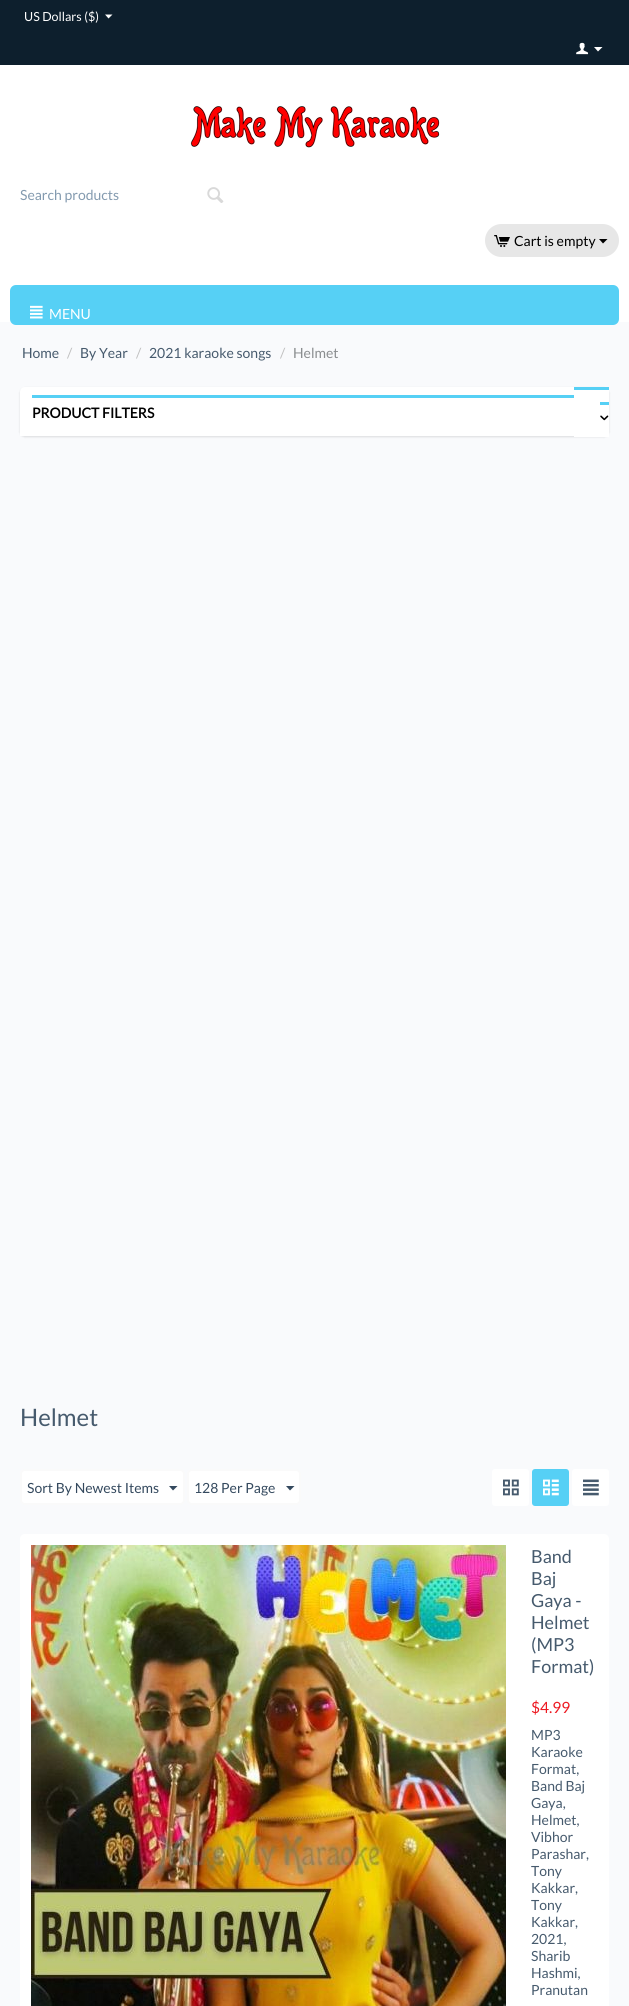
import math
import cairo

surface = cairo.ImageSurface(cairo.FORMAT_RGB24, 629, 2006)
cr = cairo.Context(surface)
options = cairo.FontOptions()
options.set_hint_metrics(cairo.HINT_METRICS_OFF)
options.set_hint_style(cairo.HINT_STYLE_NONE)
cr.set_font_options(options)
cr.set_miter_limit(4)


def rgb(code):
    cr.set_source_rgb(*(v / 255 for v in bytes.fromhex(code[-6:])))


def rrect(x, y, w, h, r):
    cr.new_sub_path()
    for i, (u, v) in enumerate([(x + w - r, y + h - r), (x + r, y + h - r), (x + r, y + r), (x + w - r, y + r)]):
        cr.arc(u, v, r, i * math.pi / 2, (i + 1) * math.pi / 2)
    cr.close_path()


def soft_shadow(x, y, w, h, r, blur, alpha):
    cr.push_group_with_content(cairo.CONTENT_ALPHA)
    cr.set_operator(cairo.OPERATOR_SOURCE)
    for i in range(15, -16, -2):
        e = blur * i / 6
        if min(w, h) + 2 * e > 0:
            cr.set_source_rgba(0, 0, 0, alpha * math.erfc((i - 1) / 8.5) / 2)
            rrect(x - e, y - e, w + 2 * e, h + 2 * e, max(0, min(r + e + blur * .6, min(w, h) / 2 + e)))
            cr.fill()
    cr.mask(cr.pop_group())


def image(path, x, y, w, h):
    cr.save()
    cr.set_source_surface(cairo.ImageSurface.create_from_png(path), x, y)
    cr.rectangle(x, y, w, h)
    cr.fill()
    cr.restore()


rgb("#0d1f2d")
cr.paint()
rgb("#ffffff")
cr.new_path()
cr.move_to(108.5, 18.5)
cr.line_to(105, 14.5)
cr.line_to(112.5, 14.5)
cr.close_path()
cr.fill()
image("img/1.png", 576, 42, 13, 13)
cr.new_path()
cr.move_to(598, 51.5)
cr.line_to(594, 47)
cr.line_to(602.5, 47)
cr.close_path()
cr.fill()
cr.rectangle(0, 65, 629, 257)
cr.fill()
image("img/2.png", 190, 106, 250, 42)
image("img/3.png", 207, 187, 17, 16)
rgb("#e7e7e7")
rrect(485, 224, 134, 33, 16.5)
cr.fill()
image("img/4.png", 494, 235, 16, 12)
rgb("#000000")
cr.new_path()
cr.move_to(603, 243.5)
cr.line_to(599, 239)
cr.line_to(607.5, 239)
cr.close_path()
cr.fill()
rgb("#f9fafc")
cr.rectangle(0, 322, 629, 1684)
cr.fill()
rgb("#56d0f5")
rrect(10, 285, 609, 40, 6)
cr.fill()
image("img/5.png", 30, 305, 13, 14)
rgb("#000000")
soft_shadow(20, 388, 589, 49, 5, 1, 0.12)
rgb("#ffffff")
cr.new_path()
cr.move_to(25, 387)
cr.line_to(604, 387)
cr.curve_to(607, 387, 609, 389, 609, 392)
cr.line_to(609, 436)
cr.line_to(20, 436)
cr.line_to(20, 392)
cr.curve_to(20, 389, 22, 387, 25, 387)
cr.close_path()
cr.fill()
for x, y, w, h, color in [
    (32, 395, 547, 3, "#56d0f5"),
    (574, 390, 35, 47, "#ffffff"),
    (574, 387, 35, 3, "#56d0f5"),
    (600, 402, 9, 3, "#56d0f5"),
]:
    rgb(color)
    cr.rectangle(x, y, w, h)
    cr.fill()
image("img/6.png", 600, 415, 9, 6)
rgb("#ffffff")
rrect(21, 1470, 163, 34, 4)
cr.fill_preserve()
rgb("#fafafa")
cr.stroke()
rgb("#34495e")
cr.new_path()
cr.move_to(173, 1490.5)
cr.line_to(169, 1486)
cr.line_to(177.5, 1486)
cr.close_path()
cr.fill()
rgb("#ffffff")
rrect(188, 1470, 112, 34, 4)
cr.fill_preserve()
rgb("#fafafa")
cr.stroke()
rgb("#34495e")
cr.new_path()
cr.move_to(290, 1490.5)
cr.line_to(286, 1486)
cr.line_to(294.5, 1486)
cr.close_path()
cr.fill()
rgb("#ffffff")
rrect(492, 1469, 37, 37, 3)
cr.fill()
image("img/7.png", 503, 1479, 16, 17)
rgb("#56d0f5")
rrect(532, 1469, 37, 37, 3)
cr.fill()
image("img/8.png", 543, 1479, 16, 17)
rgb("#ffffff")
rrect(572, 1469, 37, 37, 3)
cr.fill()
image("img/9.png", 583, 1479, 16, 17)
rrect(20, 1534, 589, 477, 5)
cr.fill()
image("img/10.png", 31, 1545, 475, 461)
cr.select_font_face("Lato")
cr.set_font_size(12.5)
cr.move_to(24, 21)
cr.show_text("US Dollars ($)")
cr.set_font_size(14)
rgb("#839aaf")
cr.move_to(20, 200)
cr.show_text("Search products")
rgb("#000000")
cr.move_to(514, 246)
cr.show_text("Cart is empty")
rgb("#ffffff")
cr.move_to(49, 319)
cr.show_text("MENU")
rgb("#465a6d")
cr.move_to(22, 358)
cr.show_text("Home")
rgb("#bfbfbf")
cr.move_to(67, 358)
cr.show_text("/")
rgb("#465a6d")
cr.move_to(80, 358)
cr.show_text("By Year")
rgb("#bfbfbf")
cr.move_to(136, 358)
cr.show_text("/")
rgb("#465a6d")
cr.move_to(149, 358)
cr.show_text("2021 karaoke songs")
rgb("#bfbfbf")
cr.move_to(280, 358)
cr.show_text("/")
rgb("#8a8d8f")
cr.move_to(293, 358)
cr.show_text("Helmet")
cr.select_font_face("Lato", cairo.FONT_SLANT_NORMAL, cairo.FONT_WEIGHT_BOLD)
rgb("#000000")
cr.move_to(32, 418)
cr.show_text("PRODUCT FILTERS")
cr.select_font_face("Lato")
cr.set_font_size(24)
rgb("#465a6d")
cr.move_to(20, 1426)
cr.show_text("Helmet")
cr.set_font_size(14)
rgb("#34495e")
cr.move_to(27, 1493)
cr.show_text("Sort By Newest Items")
cr.move_to(194, 1493)
cr.show_text("128 Per Page")
cr.set_font_size(18)
rgb("#465a6d")
for x, y, s in [
    (531, 1563, "Band"),
    (531, 1585, "Baj"),
    (531, 1607, "Gaya -"),
    (531, 1629, "Helmet"),
    (531, 1651, "(MP3"),
    (531, 1673, "Format)"),
]:
    cr.move_to(x, y)
    cr.show_text(s)
cr.set_font_size(15.5)
rgb("#ed1a22")
cr.move_to(531, 1713)
cr.show_text("$4.99")
cr.set_font_size(14)
rgb("#465a6d")
for x, y, s in [
    (531, 1740, "MP3"),
    (531, 1757, "Karaoke"),
    (531, 1774, "Format,"),
    (531, 1791, "Band Baj"),
    (531, 1808, "Gaya,"),
    (531, 1825, "Helmet,"),
    (531, 1842, "Vibhor"),
    (531, 1859, "Parashar,"),
    (531, 1876, "Tony"),
    (531, 1893, "Kakkar,"),
    (531, 1910, "Tony"),
    (531, 1927, "Kakkar,"),
    (531, 1944, "2021,"),
    (531, 1961, "Sharib"),
    (531, 1978, "Hashmi,"),
    (531, 1995, "Pranutan"),
]:
    cr.move_to(x, y)
    cr.show_text(s)
surface.write_to_png("page.png")
